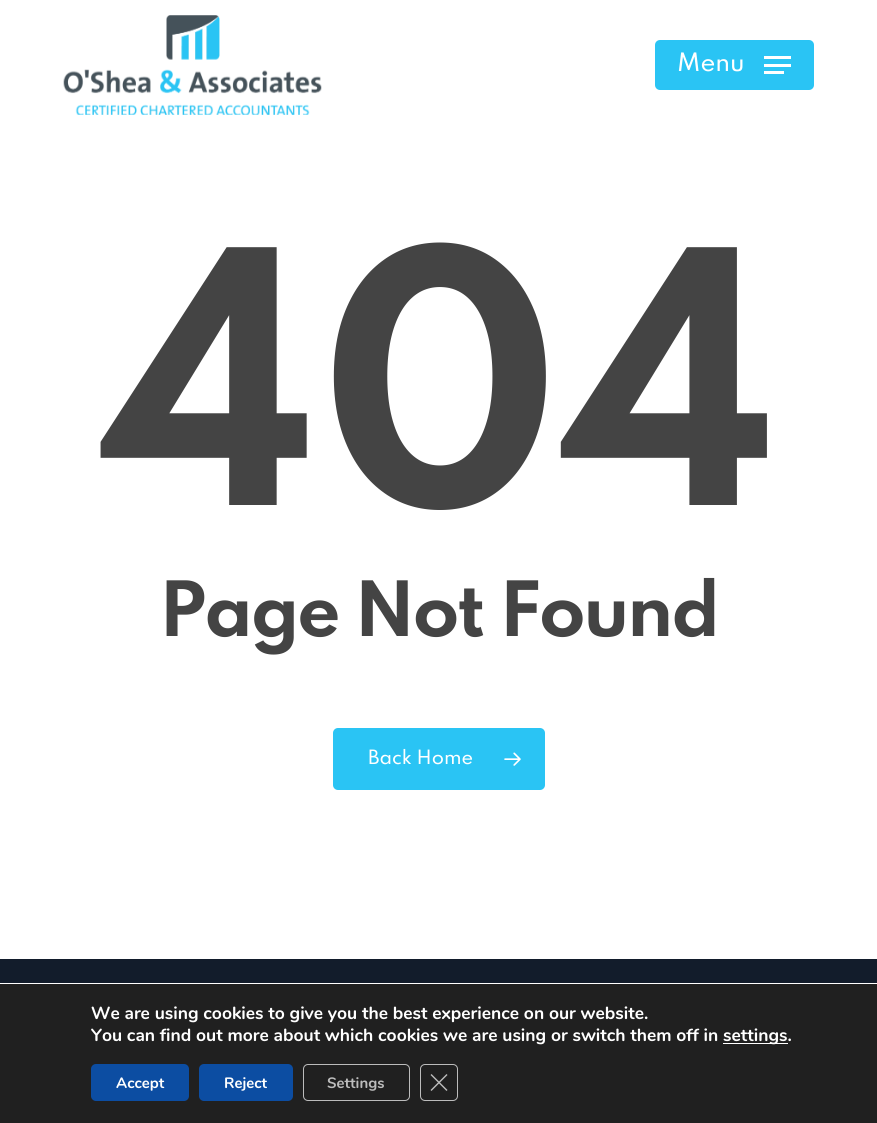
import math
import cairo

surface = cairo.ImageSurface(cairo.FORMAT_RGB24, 877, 1123)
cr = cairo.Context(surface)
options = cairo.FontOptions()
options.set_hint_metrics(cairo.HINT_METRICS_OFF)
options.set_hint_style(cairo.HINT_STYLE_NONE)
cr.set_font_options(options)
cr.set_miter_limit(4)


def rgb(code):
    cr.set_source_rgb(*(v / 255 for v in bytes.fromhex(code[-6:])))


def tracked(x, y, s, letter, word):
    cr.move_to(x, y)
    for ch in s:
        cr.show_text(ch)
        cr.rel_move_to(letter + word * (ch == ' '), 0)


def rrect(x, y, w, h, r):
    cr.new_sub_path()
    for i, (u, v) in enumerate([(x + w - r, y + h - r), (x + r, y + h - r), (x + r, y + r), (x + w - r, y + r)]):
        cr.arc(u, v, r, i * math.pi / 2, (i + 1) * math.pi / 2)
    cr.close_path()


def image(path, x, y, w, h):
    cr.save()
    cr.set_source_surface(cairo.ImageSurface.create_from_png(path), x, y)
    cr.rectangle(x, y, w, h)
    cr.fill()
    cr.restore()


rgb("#ffffff")
cr.paint()
image("img/1.png", 63, 15, 259, 100)
rgb("#2ac4f4")
rrect(655, 40, 159, 50, 5)
cr.fill()
for x, y, w, h, color in [
    (764, 56, 27, 3, "#ffffff"),
    (764, 71, 20, 3, "#ffffff"),
    (764, 64, 27, 3, "#ffffff"),
]:
    rgb(color)
    cr.rectangle(x, y, w, h)
    cr.fill()
rgb("#2ac4f4")
rrect(333, 728, 212, 62, 5)
cr.fill()
image("img/2.png", 504, 752, 17, 14)
for x, y, w, h, color in [
    (0, 959, 877, 24, "#121c2b"),
    (0, 984, 877, 139, "#202020"),
    (723, 1043, 65, 1, "#ffffff"),
]:
    rgb(color)
    cr.rectangle(x, y, w, h)
    cr.fill()
rgb("#0c4da2")
rrect(91, 1064, 98, 37, 5)
cr.fill()
rrect(199, 1064, 94, 37, 5)
cr.fill()
rrect(303.5, 1064.5, 106, 36, 4.5)
rgb("#bcbcbc")
cr.set_line_width(1)
cr.stroke()
rrect(420.5, 1064.5, 37, 36, 4.5)
cr.stroke()
cr.new_path()
cr.move_to(446.5, 1074)
cr.line_to(447.5, 1075)
cr.line_to(431.5, 1091)
cr.line_to(430.5, 1090)
cr.close_path()
cr.fill()
cr.new_path()
cr.move_to(430.5, 1075)
cr.line_to(431.5, 1074)
cr.line_to(447.5, 1090)
cr.line_to(446.5, 1091)
cr.close_path()
cr.fill()
cr.select_font_face("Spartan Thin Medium")
cr.set_font_size(22.5)
rgb("#ffffff")
cr.move_to(677, 71)
cr.show_text("Menu")
cr.select_font_face("Spartan Thin", cairo.FONT_SLANT_NORMAL, cairo.FONT_WEIGHT_BOLD)
cr.set_font_size(312.5)
rgb("#444444")
tracked(99, 505, "404", -4, 0)
cr.set_font_size(67.5)
tracked(159, 636, "Page Not Found", -2.5, 0)
cr.select_font_face("Spartan Thin Medium")
cr.set_font_size(17.5)
rgb("#ffffff")
cr.move_to(368, 764)
cr.show_text("Back Home")
cr.select_font_face("Nunito", cairo.FONT_SLANT_NORMAL, cairo.FONT_WEIGHT_BOLD)
for x, y, s in [
    (91, 1019, "We are using cookies to give you the best experience on our website."),
    (91, 1041, "You can find out more about which cookies we are using or switch them off in"),
    (723, 1041, "settings."),
]:
    cr.move_to(x, y)
    cr.show_text(s)
cr.set_font_size(15)
cr.move_to(116, 1088)
cr.show_text("Accept")
cr.move_to(224, 1088)
cr.show_text("Reject")
rgb("#bcbcbc")
cr.move_to(327, 1088)
cr.show_text("Settings")
surface.write_to_png("page.png")
